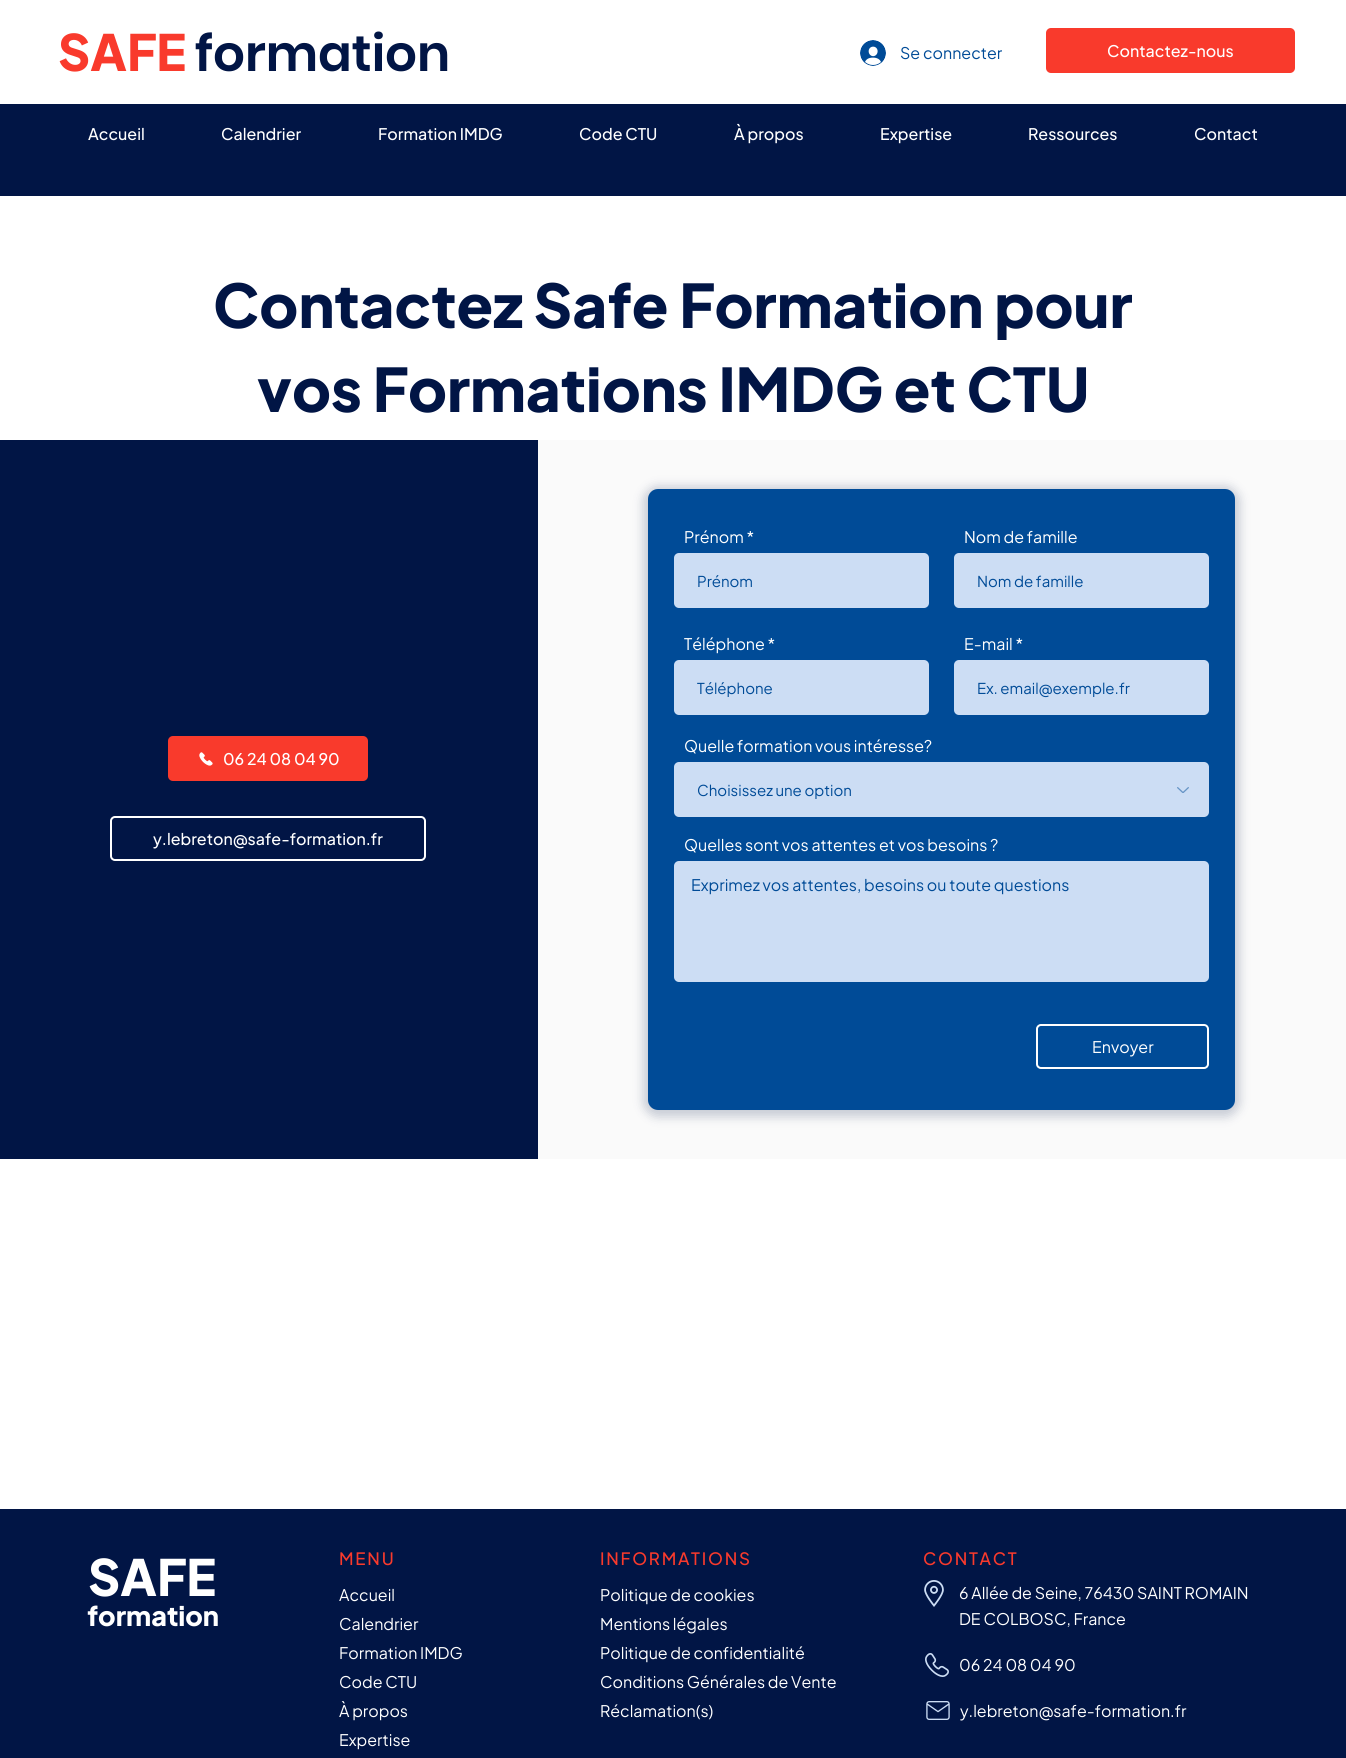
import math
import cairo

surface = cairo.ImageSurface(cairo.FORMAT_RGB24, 1346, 1758)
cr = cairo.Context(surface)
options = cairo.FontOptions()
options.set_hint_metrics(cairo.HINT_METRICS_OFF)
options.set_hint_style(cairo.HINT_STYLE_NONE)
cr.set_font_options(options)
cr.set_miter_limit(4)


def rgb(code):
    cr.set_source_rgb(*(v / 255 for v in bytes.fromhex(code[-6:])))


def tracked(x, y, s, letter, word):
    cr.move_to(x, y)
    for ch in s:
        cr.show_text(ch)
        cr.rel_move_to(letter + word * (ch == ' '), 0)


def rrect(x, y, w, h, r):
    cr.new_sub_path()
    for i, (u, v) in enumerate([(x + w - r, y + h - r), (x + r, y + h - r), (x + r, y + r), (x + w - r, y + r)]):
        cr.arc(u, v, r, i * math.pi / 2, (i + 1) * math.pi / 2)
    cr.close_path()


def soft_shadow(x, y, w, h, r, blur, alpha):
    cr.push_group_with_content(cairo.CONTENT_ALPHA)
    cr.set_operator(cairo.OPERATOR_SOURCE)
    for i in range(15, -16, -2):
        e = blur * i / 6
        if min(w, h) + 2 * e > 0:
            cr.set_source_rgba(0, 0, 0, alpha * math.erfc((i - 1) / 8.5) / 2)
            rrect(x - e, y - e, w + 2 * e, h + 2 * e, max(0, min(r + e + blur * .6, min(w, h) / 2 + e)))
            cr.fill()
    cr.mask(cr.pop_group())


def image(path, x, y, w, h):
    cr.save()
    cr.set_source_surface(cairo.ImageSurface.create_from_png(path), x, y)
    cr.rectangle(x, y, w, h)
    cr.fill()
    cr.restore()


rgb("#ffffff")
cr.paint()
image("img/1.png", 860, 40, 26, 26)
rgb("#f93a2c")
rrect(1046, 28, 249, 45, 5)
cr.fill()
rgb("#011545")
cr.rectangle(0, 104, 1346, 92)
cr.fill()
cr.rectangle(0, 440, 538, 719)
cr.fill()
rgb("#f93a2c")
rrect(168, 736, 200, 45, 5)
cr.fill()
image("img/2.png", 199, 752, 14, 14)
rrect(111, 817, 314, 43, 4)
rgb("#ffffff")
cr.stroke()
rgb("#fafafa")
cr.rectangle(538, 440, 808, 719)
cr.fill()
rgb("#011545")
soft_shadow(643, 486, 597, 631, 15, 5, 0.2)
rgb("#004b97")
rrect(648, 489, 587, 621, 10)
cr.fill()
rgb("#ccddf4")
rrect(674, 553, 255, 55, 5)
cr.fill()
rrect(954, 553, 255, 55, 5)
cr.fill()
rrect(674, 660, 255, 55, 5)
cr.fill()
rrect(954, 660, 255, 55, 5)
cr.fill()
rrect(674, 762, 535, 55, 5)
cr.fill()
image("img/3.png", 1177, 787, 12, 6)
rrect(674, 861, 535, 121, 5)
cr.fill()
rrect(1037, 1025, 171, 43, 4)
rgb("#ffffff")
cr.stroke()
rgb("#011545")
cr.rectangle(0, 1509, 1346, 249)
cr.fill()
image("img/4.png", 924, 1580, 20, 27)
image("img/5.png", 925, 1653, 24, 24)
image("img/6.png", 926, 1701, 24, 19)
cr.select_font_face("Plus Jakarta Sans ExtraBold")
cr.set_font_size(50)
rgb("#f93a2c")
cr.move_to(58, 71)
cr.show_text("SAFE")
cr.select_font_face("Poppins SemiBold")
rgb("#011545")
cr.move_to(195, 71)
cr.show_text("formation")
cr.select_font_face("Plus Jakarta Sans")
cr.set_font_size(16)
rgb("#004b97")
cr.move_to(900, 59)
cr.show_text("Se connecter")
cr.select_font_face("Plus Jakarta Sans Medium")
rgb("#ffffff")
for x, y, s in [
    (1107, 57, "Contactez-nous"),
    (88, 140, "Accueil"),
    (221, 140, "Calendrier"),
    (378, 140, "Formation IMDG"),
    (579, 140, "Code CTU"),
    (734, 140, "À propos"),
    (880, 140, "Expertise"),
    (1028, 140, "Ressources"),
    (1194, 140, "Contact"),
]:
    cr.move_to(x, y)
    cr.show_text(s)
cr.select_font_face("Plus Jakarta Sans ExtraBold")
cr.set_font_size(60)
rgb("#011545")
cr.move_to(213, 328)
cr.show_text("Contactez Safe Formation pour")
cr.move_to(257, 412)
cr.show_text("vos Formations IMDG et CTU")
cr.select_font_face("Plus Jakarta Sans Medium")
cr.set_font_size(16)
rgb("#ffffff")
cr.move_to(223, 765)
cr.show_text("06 24 08 04 90")
cr.move_to(153, 845)
cr.show_text("y.lebreton@safe-formation.fr")
cr.select_font_face("Plus Jakarta Sans")
cr.move_to(684, 543)
cr.show_text("Prénom *")
cr.set_font_size(15)
rgb("#004b97")
cr.move_to(697, 587)
cr.show_text("Prénom")
cr.set_font_size(16)
rgb("#ffffff")
cr.move_to(964, 543)
cr.show_text("Nom de famille")
cr.set_font_size(15)
rgb("#004b97")
cr.move_to(977, 587)
cr.show_text("Nom de famille")
cr.set_font_size(16)
rgb("#ffffff")
cr.move_to(684, 650)
cr.show_text("Téléphone *")
cr.set_font_size(15)
rgb("#004b97")
cr.move_to(697, 694)
cr.show_text("Téléphone")
cr.set_font_size(16)
rgb("#ffffff")
cr.move_to(964, 650)
cr.show_text("E-mail *")
cr.set_font_size(15)
rgb("#004b97")
cr.move_to(977, 694)
cr.show_text("Ex. email@exemple.fr")
cr.set_font_size(16)
rgb("#ffffff")
cr.move_to(684, 752)
cr.show_text("Quelle formation vous intéresse?")
cr.set_font_size(15)
rgb("#004b97")
cr.move_to(697, 796)
cr.show_text("Choisissez une option")
cr.set_font_size(16)
rgb("#ffffff")
cr.move_to(684, 851)
cr.show_text("Quelles sont vos attentes et vos besoins ?")
rgb("#004b97")
cr.move_to(691, 891)
cr.show_text("Exprimez vos attentes, besoins ou toute questions")
rgb("#ffffff")
cr.move_to(1092, 1053)
cr.show_text("Envoyer")
cr.select_font_face("Plus Jakarta Sans ExtraBold")
cr.set_font_size(50)
cr.move_to(88, 1596)
cr.show_text("SAFE")
cr.set_font_size(27)
cr.move_to(87, 1626)
cr.show_text("formation")
cr.select_font_face("Plus Jakarta Sans Medium")
cr.set_font_size(17)
rgb("#f93a2c")
tracked(339, 1565, "MENU", 1.75, 0)
cr.select_font_face("Plus Jakarta Sans")
cr.set_font_size(16)
rgb("#ffffff")
for x, y, s in [
    (339, 1601, "Accueil"),
    (339, 1630, "Calendrier"),
    (339, 1659, "Formation IMDG"),
    (339, 1688, "Code CTU"),
    (339, 1717, "À propos"),
    (339, 1746, "Expertise"),
]:
    cr.move_to(x, y)
    cr.show_text(s)
cr.select_font_face("Plus Jakarta Sans Medium")
cr.set_font_size(17)
rgb("#f93a2c")
tracked(600, 1565, "INFORMATIONS", 1.75, 0)
cr.select_font_face("Plus Jakarta Sans")
cr.set_font_size(16)
rgb("#ffffff")
for x, y, s in [
    (600, 1601, "Politique de cookies"),
    (600, 1630, "Mentions légales"),
    (600, 1659, "Politique de confidentialité"),
    (600, 1688, "Conditions Générales de Vente"),
    (600, 1717, "Réclamation(s)"),
]:
    cr.move_to(x, y)
    cr.show_text(s)
cr.select_font_face("Plus Jakarta Sans Medium")
cr.set_font_size(17)
rgb("#f93a2c")
tracked(923, 1565, "CONTACT", 1.75, 0)
cr.select_font_face("Plus Jakarta Sans")
cr.set_font_size(16)
rgb("#ffffff")
for x, y, s in [
    (959, 1599, "6 Allée de Seine, 76430 SAINT ROMAIN"),
    (959, 1625, "DE COLBOSC, France"),
    (959, 1671, "06 24 08 04 90"),
    (960, 1717, "y.lebreton@safe-formation.fr"),
]:
    cr.move_to(x, y)
    cr.show_text(s)
surface.write_to_png("page.png")
